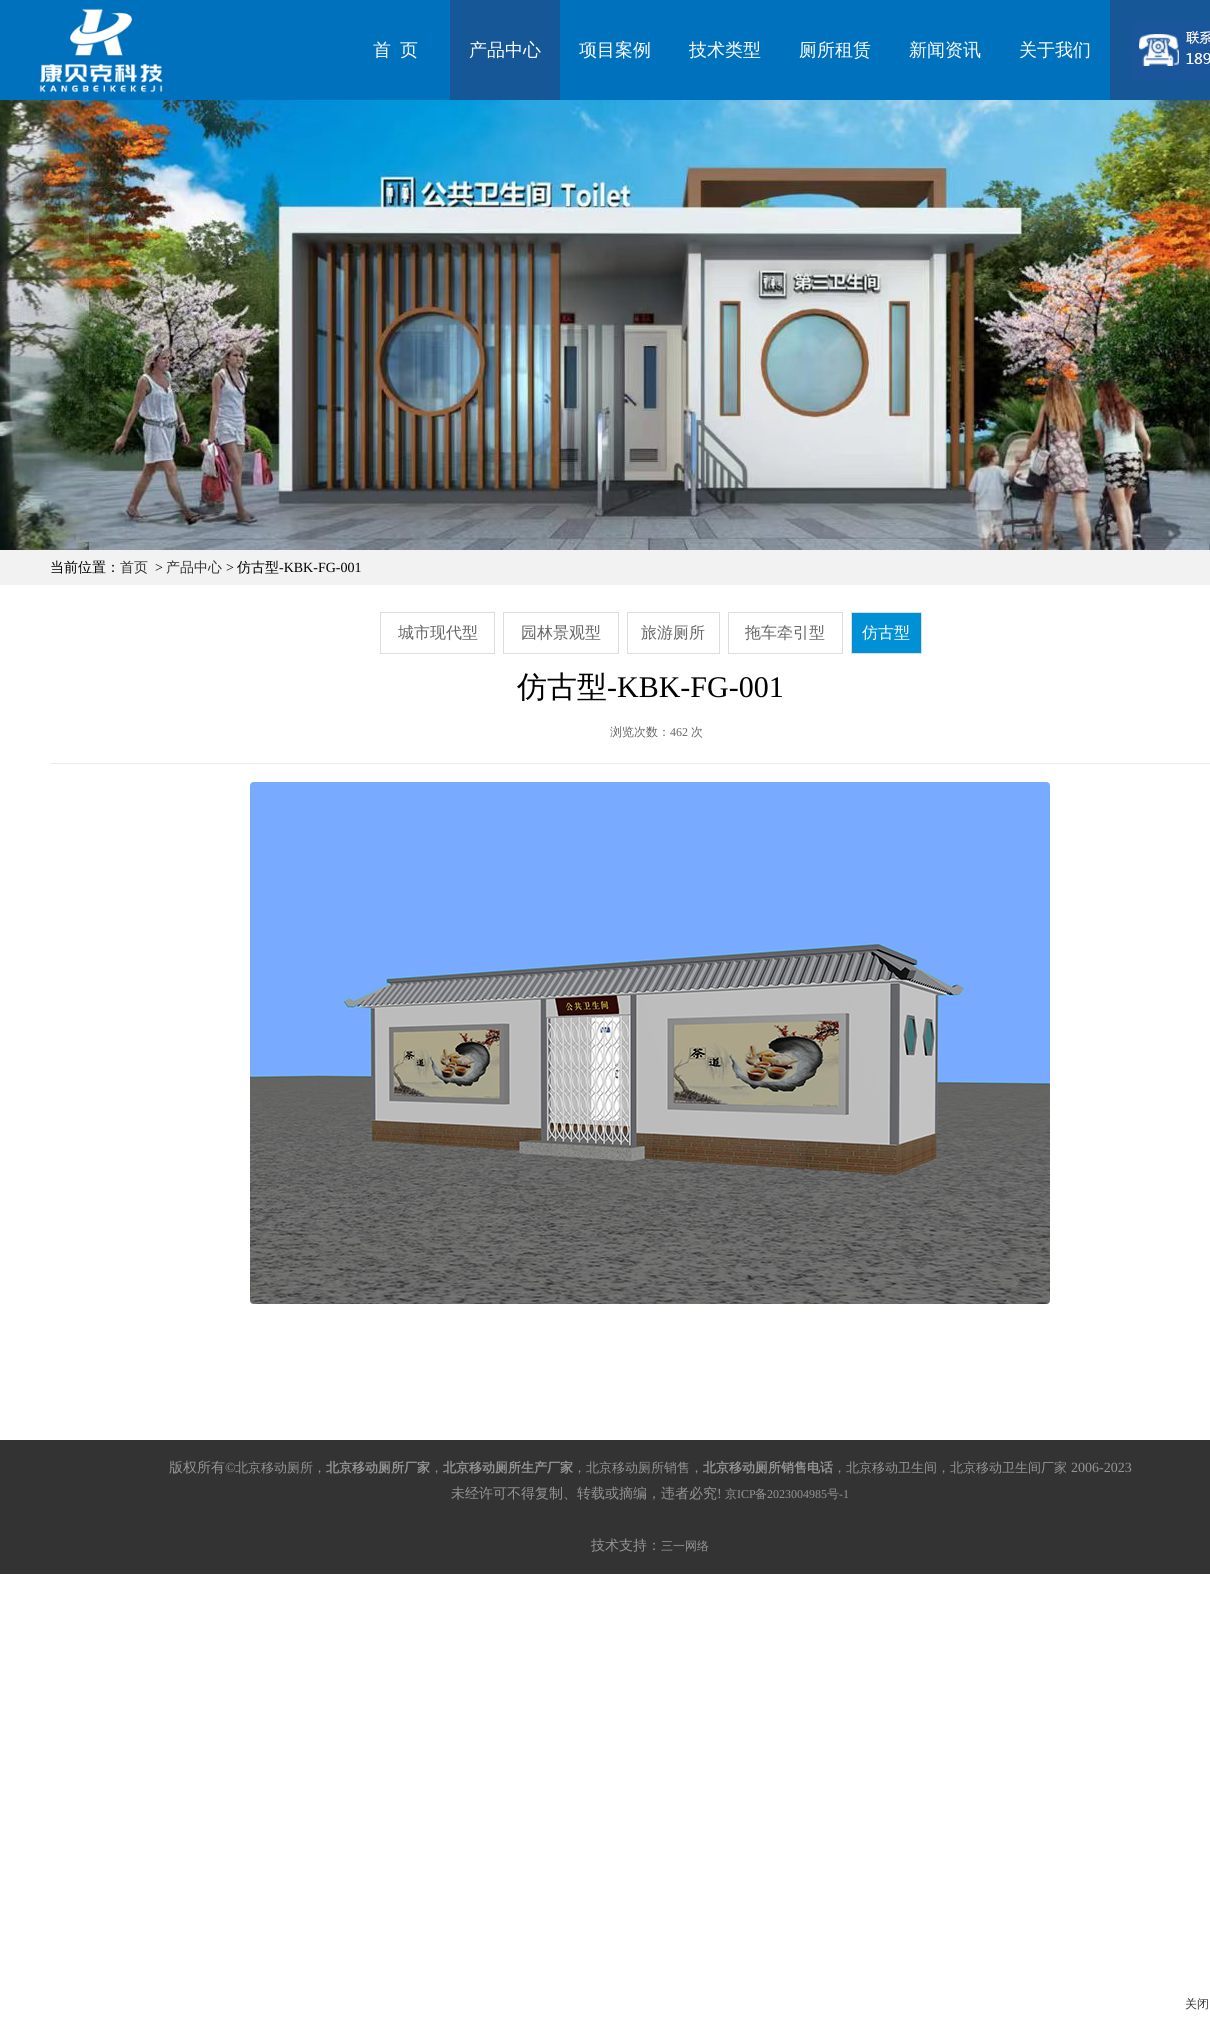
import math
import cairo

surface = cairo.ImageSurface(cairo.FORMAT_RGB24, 1210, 2018)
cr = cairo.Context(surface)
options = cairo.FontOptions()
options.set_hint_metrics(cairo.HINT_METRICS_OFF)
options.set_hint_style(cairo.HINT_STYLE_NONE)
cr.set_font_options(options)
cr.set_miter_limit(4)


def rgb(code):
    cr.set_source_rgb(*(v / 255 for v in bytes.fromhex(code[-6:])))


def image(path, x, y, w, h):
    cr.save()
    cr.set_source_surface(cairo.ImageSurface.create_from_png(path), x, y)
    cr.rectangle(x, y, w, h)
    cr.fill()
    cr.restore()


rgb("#ffffff")
cr.paint()
rgb("#0071bc")
cr.rectangle(0, 0, 1110, 100)
cr.fill()
image("img/1.png", 39, 8, 124, 85)
rgb("#165797")
cr.rectangle(450, 0, 110, 100)
cr.fill()
cr.rectangle(1110, 0, 100, 100)
cr.fill()
image("img/2.png", 1134, 22, 76, 57)
image("img/3.png", 0, 100, 1210, 450)
rgb("#f2f2f2")
cr.rectangle(0, 550, 1210, 35)
cr.fill()
cr.rectangle(380.5, 612.5, 114, 41)
rgb("#dddddd")
cr.set_line_width(1)
cr.stroke()
cr.rectangle(503.5, 612.5, 115, 41)
cr.stroke()
cr.rectangle(627.5, 612.5, 92, 41)
cr.stroke()
cr.rectangle(728.5, 612.5, 114, 41)
cr.stroke()
rgb("#0090d6")
cr.rectangle(851.5, 612.5, 70, 41)
cr.fill_preserve()
rgb("#dddddd")
cr.stroke()
rgb("#ececeb")
cr.rectangle(50, 763, 1160, 1)
cr.fill()
image("img/4.png", 250, 782, 800, 522)
rgb("#333333")
cr.rectangle(0, 1440, 1210, 134)
cr.fill()
cr.select_font_face("WenQuanYi Zen Hei Medium")
cr.set_font_size(18)
rgb("#ffffff")
for x, y, s in [
    (373, 56, "首"),
    (400, 56, "页"),
    (469, 56, "产品中心"),
    (579, 56, "项目案例"),
    (689, 56, "技术类型"),
    (799, 56, "厕所租赁"),
    (909, 56, "新闻资讯"),
    (1019, 56, "关于我们"),
]:
    cr.move_to(x, y)
    cr.show_text(s)
cr.set_font_size(14)
rgb("#000000")
cr.move_to(50, 572)
cr.show_text("当前位置：")
rgb("#333333")
cr.move_to(120, 572)
cr.show_text("首页")
cr.select_font_face("Liberation Serif")
rgb("#000000")
cr.move_to(155, 572)
cr.show_text(">")
cr.select_font_face("WenQuanYi Zen Hei Medium")
rgb("#333333")
cr.move_to(166, 572)
cr.show_text("产品中心")
cr.select_font_face("Liberation Serif")
rgb("#000000")
cr.move_to(226, 572)
cr.show_text(">")
cr.select_font_face("WenQuanYi Zen Hei Medium")
cr.move_to(237, 572)
cr.show_text("仿古型")
cr.select_font_face("Liberation Serif")
cr.move_to(279, 572)
cr.show_text("-KBK-FG-001")
cr.select_font_face("WenQuanYi Zen Hei Medium")
cr.set_font_size(16)
rgb("#666666")
for x, y, s in [
    (398, 638, "城市现代型"),
    (521, 638, "园林景观型"),
    (641, 638, "旅游厕所"),
    (745, 638, "拖车牵引型"),
]:
    cr.move_to(x, y)
    cr.show_text(s)
rgb("#ffffff")
cr.move_to(862, 638)
cr.show_text("仿古型")
cr.set_font_size(30)
rgb("#000000")
cr.move_to(517, 697)
cr.show_text("仿古型")
cr.select_font_face("Liberation Serif")
cr.move_to(607, 697)
cr.show_text("-KBK-FG-001")
cr.select_font_face("WenQuanYi Zen Hei Medium")
cr.set_font_size(12)
rgb("#666666")
cr.move_to(610, 736)
cr.show_text("浏览次数：")
cr.select_font_face("Liberation Serif")
cr.move_to(670, 736)
cr.show_text("462")
cr.select_font_face("WenQuanYi Zen Hei Medium")
cr.move_to(691, 736)
cr.show_text("次")
cr.set_font_size(14)
rgb("#949494")
cr.move_to(169, 1472)
cr.show_text("版权所有")
cr.select_font_face("Liberation Serif")
cr.move_to(225, 1472)
cr.show_text("©")
cr.select_font_face("WenQuanYi Zen Hei Medium")
cr.set_font_size(13)
cr.move_to(235, 1472)
cr.show_text("北京移动厕所，")
cr.select_font_face("WenQuanYi Zen Hei", cairo.FONT_SLANT_NORMAL, cairo.FONT_WEIGHT_BOLD)
cr.move_to(326, 1472)
cr.show_text("北京移动厕所厂家")
cr.select_font_face("WenQuanYi Zen Hei Medium")
cr.move_to(430, 1472)
cr.show_text("，")
cr.select_font_face("WenQuanYi Zen Hei", cairo.FONT_SLANT_NORMAL, cairo.FONT_WEIGHT_BOLD)
cr.move_to(443, 1472)
cr.show_text("北京移动厕所生产厂家")
cr.select_font_face("WenQuanYi Zen Hei Medium")
cr.move_to(573, 1472)
cr.show_text("，北京移动厕所销售，")
cr.select_font_face("WenQuanYi Zen Hei", cairo.FONT_SLANT_NORMAL, cairo.FONT_WEIGHT_BOLD)
cr.move_to(703, 1472)
cr.show_text("北京移动厕所销售电话")
cr.select_font_face("WenQuanYi Zen Hei Medium")
cr.move_to(833, 1472)
cr.show_text("，北京移动卫生间，北京移动卫生间厂家")
cr.select_font_face("Liberation Serif")
cr.set_font_size(14)
cr.move_to(1071, 1472)
cr.show_text("2006-2023")
cr.select_font_face("WenQuanYi Zen Hei Medium")
cr.move_to(451, 1498)
cr.show_text("未经许可不得复制、转载或摘编，违者必究")
cr.select_font_face("Liberation Serif")
cr.move_to(717, 1498)
cr.show_text("!")
cr.select_font_face("WenQuanYi Zen Hei Medium")
cr.set_font_size(12)
cr.move_to(725, 1498)
cr.show_text("京")
cr.select_font_face("Liberation Serif")
cr.move_to(737, 1498)
cr.show_text("ICP")
cr.select_font_face("WenQuanYi Zen Hei Medium")
cr.move_to(755, 1498)
cr.show_text("备")
cr.select_font_face("Liberation Serif")
cr.move_to(767, 1498)
cr.show_text("2023004985")
cr.select_font_face("WenQuanYi Zen Hei Medium")
cr.move_to(827, 1498)
cr.show_text("号")
cr.select_font_face("Liberation Serif")
cr.move_to(839, 1498)
cr.show_text("-1")
cr.select_font_face("WenQuanYi Zen Hei Medium")
cr.set_font_size(14)
cr.move_to(591, 1550)
cr.show_text("技术支持：")
cr.set_font_size(12)
cr.move_to(661, 1550)
cr.show_text("三一网络")
rgb("#333333")
cr.move_to(1185, 2008)
cr.show_text("关闭")
surface.write_to_png("page.png")
